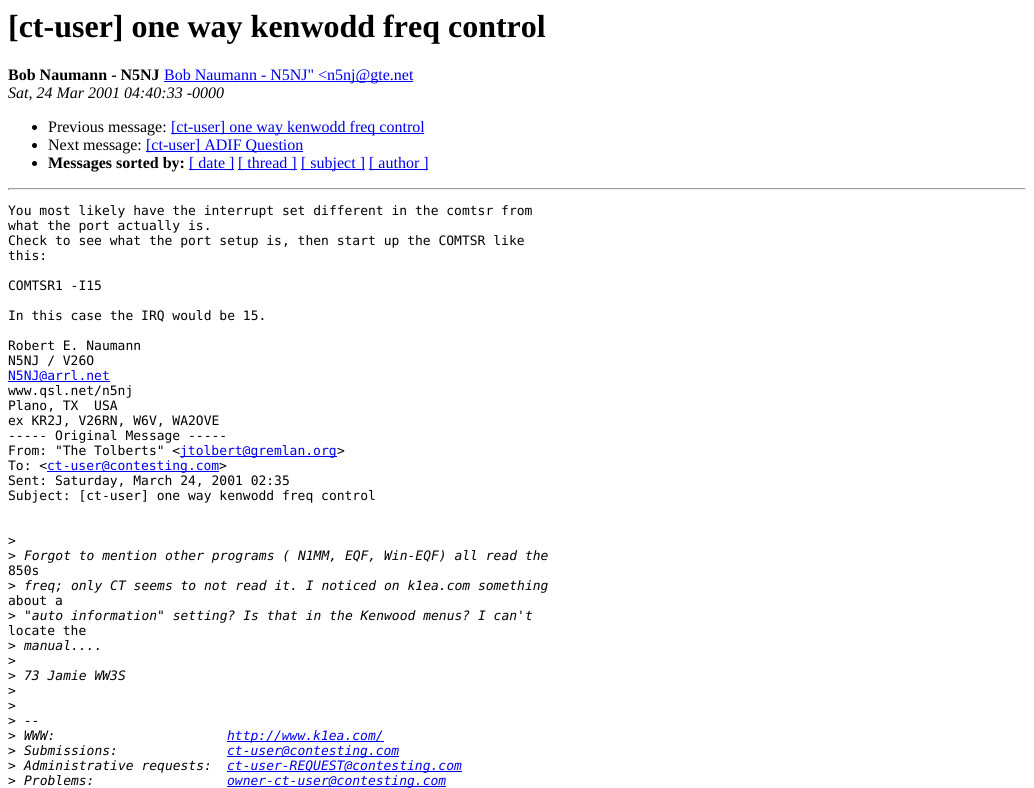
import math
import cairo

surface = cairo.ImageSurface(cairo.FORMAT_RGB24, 1034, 788)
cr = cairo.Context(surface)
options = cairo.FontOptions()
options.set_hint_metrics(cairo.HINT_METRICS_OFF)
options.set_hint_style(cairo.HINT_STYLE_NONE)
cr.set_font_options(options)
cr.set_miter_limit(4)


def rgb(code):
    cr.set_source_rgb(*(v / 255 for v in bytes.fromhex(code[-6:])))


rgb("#ffffff")
cr.paint()
rgb("#0000ee")
cr.rectangle(164, 81, 249, 1)
cr.fill()
rgb("#000000")
cr.arc(34.5, 127.5, 2.5, 0, 2 * math.pi)
cr.fill()
rgb("#0000ee")
cr.rectangle(171, 133, 253, 1)
cr.fill()
rgb("#000000")
cr.arc(34.5, 145.5, 2.5, 0, 2 * math.pi)
cr.fill()
rgb("#0000ee")
cr.rectangle(146, 151, 157, 1)
cr.fill()
rgb("#000000")
cr.arc(34.5, 163.5, 2.5, 0, 2 * math.pi)
cr.fill()
for x, y, w, h, color in [
    (189, 169, 45, 1, "#0000ee"),
    (238, 169, 59, 1, "#0000ee"),
    (301, 169, 64, 1, "#0000ee"),
    (369, 169, 59, 1, "#0000ee"),
    (8, 188, 1018, 1, "#9f9f9f"),
    (1025, 188, 1, 2, "#eeeeee"),
    (8, 189, 1018, 1, "#eeeeee"),
    (8, 188, 1, 2, "#9f9f9f"),
    (8, 381, 102, 1, "#0000ee"),
    (180, 456, 157, 1, "#0000ee"),
    (47, 471, 172, 1, "#0000ee"),
    (227, 741, 157, 1, "#0000ee"),
    (227, 756, 172, 1, "#0000ee"),
    (227, 771, 235, 1, "#0000ee"),
    (227, 786, 219, 1, "#0000ee"),
]:
    rgb(color)
    cr.rectangle(x, y, w, h)
    cr.fill()
cr.select_font_face("Liberation Serif", cairo.FONT_SLANT_NORMAL, cairo.FONT_WEIGHT_BOLD)
cr.set_font_size(32)
rgb("#000000")
cr.move_to(8, 37)
cr.show_text("[ct-user] one way kenwodd freq control")
cr.set_font_size(16)
cr.move_to(8, 80)
cr.show_text("Bob Naumann - N5NJ")
cr.select_font_face("Liberation Serif")
rgb("#0000ee")
cr.move_to(164, 80)
cr.show_text("Bob Naumann - N5NJ\" <n5nj@gte.net")
cr.select_font_face("Liberation Serif", cairo.FONT_SLANT_ITALIC)
rgb("#000000")
cr.move_to(8, 98)
cr.show_text("Sat, 24 Mar 2001 04:40:33 -0000")
cr.select_font_face("Liberation Serif")
cr.move_to(48, 132)
cr.show_text("Previous message:")
rgb("#0000ee")
cr.move_to(171, 132)
cr.show_text("[ct-user] one way kenwodd freq control")
rgb("#000000")
cr.move_to(48, 150)
cr.show_text("Next message:")
rgb("#0000ee")
cr.move_to(146, 150)
cr.show_text("[ct-user] ADIF Question")
cr.select_font_face("Liberation Serif", cairo.FONT_SLANT_NORMAL, cairo.FONT_WEIGHT_BOLD)
rgb("#000000")
cr.move_to(48, 168)
cr.show_text("Messages sorted by:")
cr.select_font_face("Liberation Serif")
rgb("#0000ee")
for x, y, s in [
    (189, 168, "[ date ]"),
    (238, 168, "[ thread ]"),
    (301, 168, "[ subject ]"),
    (369, 168, "[ author ]"),
]:
    cr.move_to(x, y)
    cr.show_text(s)
cr.select_font_face("DejaVu Sans Mono")
cr.set_font_size(13)
rgb("#000000")
for x, y, s in [
    (8, 215, "You most likely have the interrupt set different in the comtsr from"),
    (8, 230, "what the port actually is."),
    (8, 245, "Check to see what the port setup is, then start up the COMTSR like"),
    (8, 260, "this:"),
    (8, 290, "COMTSR1 -I15"),
    (8, 320, "In this case the IRQ would be 15."),
    (8, 350, "Robert E. Naumann"),
    (8, 365, "N5NJ / V26O"),
]:
    cr.move_to(x, y)
    cr.show_text(s)
rgb("#0000ee")
cr.move_to(8, 380)
cr.show_text("N5NJ@arrl.net")
rgb("#000000")
for x, y, s in [
    (8, 395, "www.qsl.net/n5nj"),
    (8, 410, "Plano, TX  USA"),
    (8, 425, "ex KR2J, V26RN, W6V, WA2OVE"),
    (8, 440, "----- Original Message -----"),
    (8, 455, "From: \"The Tolberts\" <"),
]:
    cr.move_to(x, y)
    cr.show_text(s)
rgb("#0000ee")
cr.move_to(180, 455)
cr.show_text("jtolbert@gremlan.org")
rgb("#000000")
cr.move_to(337, 455)
cr.show_text(">")
cr.move_to(8, 470)
cr.show_text("To: <")
rgb("#0000ee")
cr.move_to(47, 470)
cr.show_text("ct-user@contesting.com")
rgb("#000000")
for x, y, s in [
    (219, 470, ">"),
    (8, 485, "Sent: Saturday, March 24, 2001 02:35"),
    (8, 500, "Subject: [ct-user] one way kenwodd freq control"),
    (8, 545, ">"),
    (8, 560, ">"),
]:
    cr.move_to(x, y)
    cr.show_text(s)
cr.select_font_face("DejaVu Sans Mono", cairo.FONT_SLANT_ITALIC)
cr.move_to(24, 560)
cr.show_text("Forgot to mention other programs ( N1MM, EQF, Win-EQF) all read the")
cr.select_font_face("DejaVu Sans Mono")
cr.move_to(8, 575)
cr.show_text("850s")
cr.move_to(8, 590)
cr.show_text(">")
cr.select_font_face("DejaVu Sans Mono", cairo.FONT_SLANT_ITALIC)
cr.move_to(24, 590)
cr.show_text("freq; only CT seems to not read it. I noticed on k1ea.com something")
cr.select_font_face("DejaVu Sans Mono")
cr.move_to(8, 605)
cr.show_text("about a")
cr.move_to(8, 620)
cr.show_text(">")
cr.select_font_face("DejaVu Sans Mono", cairo.FONT_SLANT_ITALIC)
cr.move_to(24, 620)
cr.show_text("\"auto information\" setting? Is that in the Kenwood menus? I can't")
cr.select_font_face("DejaVu Sans Mono")
cr.move_to(8, 635)
cr.show_text("locate the")
cr.move_to(8, 650)
cr.show_text(">")
cr.select_font_face("DejaVu Sans Mono", cairo.FONT_SLANT_ITALIC)
cr.move_to(24, 650)
cr.show_text("manual....")
cr.select_font_face("DejaVu Sans Mono")
cr.move_to(8, 665)
cr.show_text(">")
cr.move_to(8, 680)
cr.show_text(">")
cr.select_font_face("DejaVu Sans Mono", cairo.FONT_SLANT_ITALIC)
cr.move_to(24, 680)
cr.show_text("73 Jamie WW3S")
cr.select_font_face("DejaVu Sans Mono")
for x, y, s in [
    (8, 695, ">"),
    (8, 710, ">"),
    (8, 725, ">"),
]:
    cr.move_to(x, y)
    cr.show_text(s)
cr.select_font_face("DejaVu Sans Mono", cairo.FONT_SLANT_ITALIC)
cr.move_to(24, 725)
cr.show_text("--")
cr.select_font_face("DejaVu Sans Mono")
cr.move_to(8, 740)
cr.show_text(">")
cr.select_font_face("DejaVu Sans Mono", cairo.FONT_SLANT_ITALIC)
cr.move_to(24, 740)
cr.show_text("WWW:")
rgb("#0000ee")
cr.move_to(227, 740)
cr.show_text("http://www.k1ea.com/")
cr.select_font_face("DejaVu Sans Mono")
rgb("#000000")
cr.move_to(8, 755)
cr.show_text(">")
cr.select_font_face("DejaVu Sans Mono", cairo.FONT_SLANT_ITALIC)
cr.move_to(24, 755)
cr.show_text("Submissions:")
rgb("#0000ee")
cr.move_to(227, 755)
cr.show_text("ct-user@contesting.com")
cr.select_font_face("DejaVu Sans Mono")
rgb("#000000")
cr.move_to(8, 770)
cr.show_text(">")
cr.select_font_face("DejaVu Sans Mono", cairo.FONT_SLANT_ITALIC)
cr.move_to(24, 770)
cr.show_text("Administrative requests:")
rgb("#0000ee")
cr.move_to(227, 770)
cr.show_text("ct-user-REQUEST@contesting.com")
cr.select_font_face("DejaVu Sans Mono")
rgb("#000000")
cr.move_to(8, 785)
cr.show_text(">")
cr.select_font_face("DejaVu Sans Mono", cairo.FONT_SLANT_ITALIC)
cr.move_to(24, 785)
cr.show_text("Problems:")
rgb("#0000ee")
cr.move_to(227, 785)
cr.show_text("owner-ct-user@contesting.com")
surface.write_to_png("page.png")
